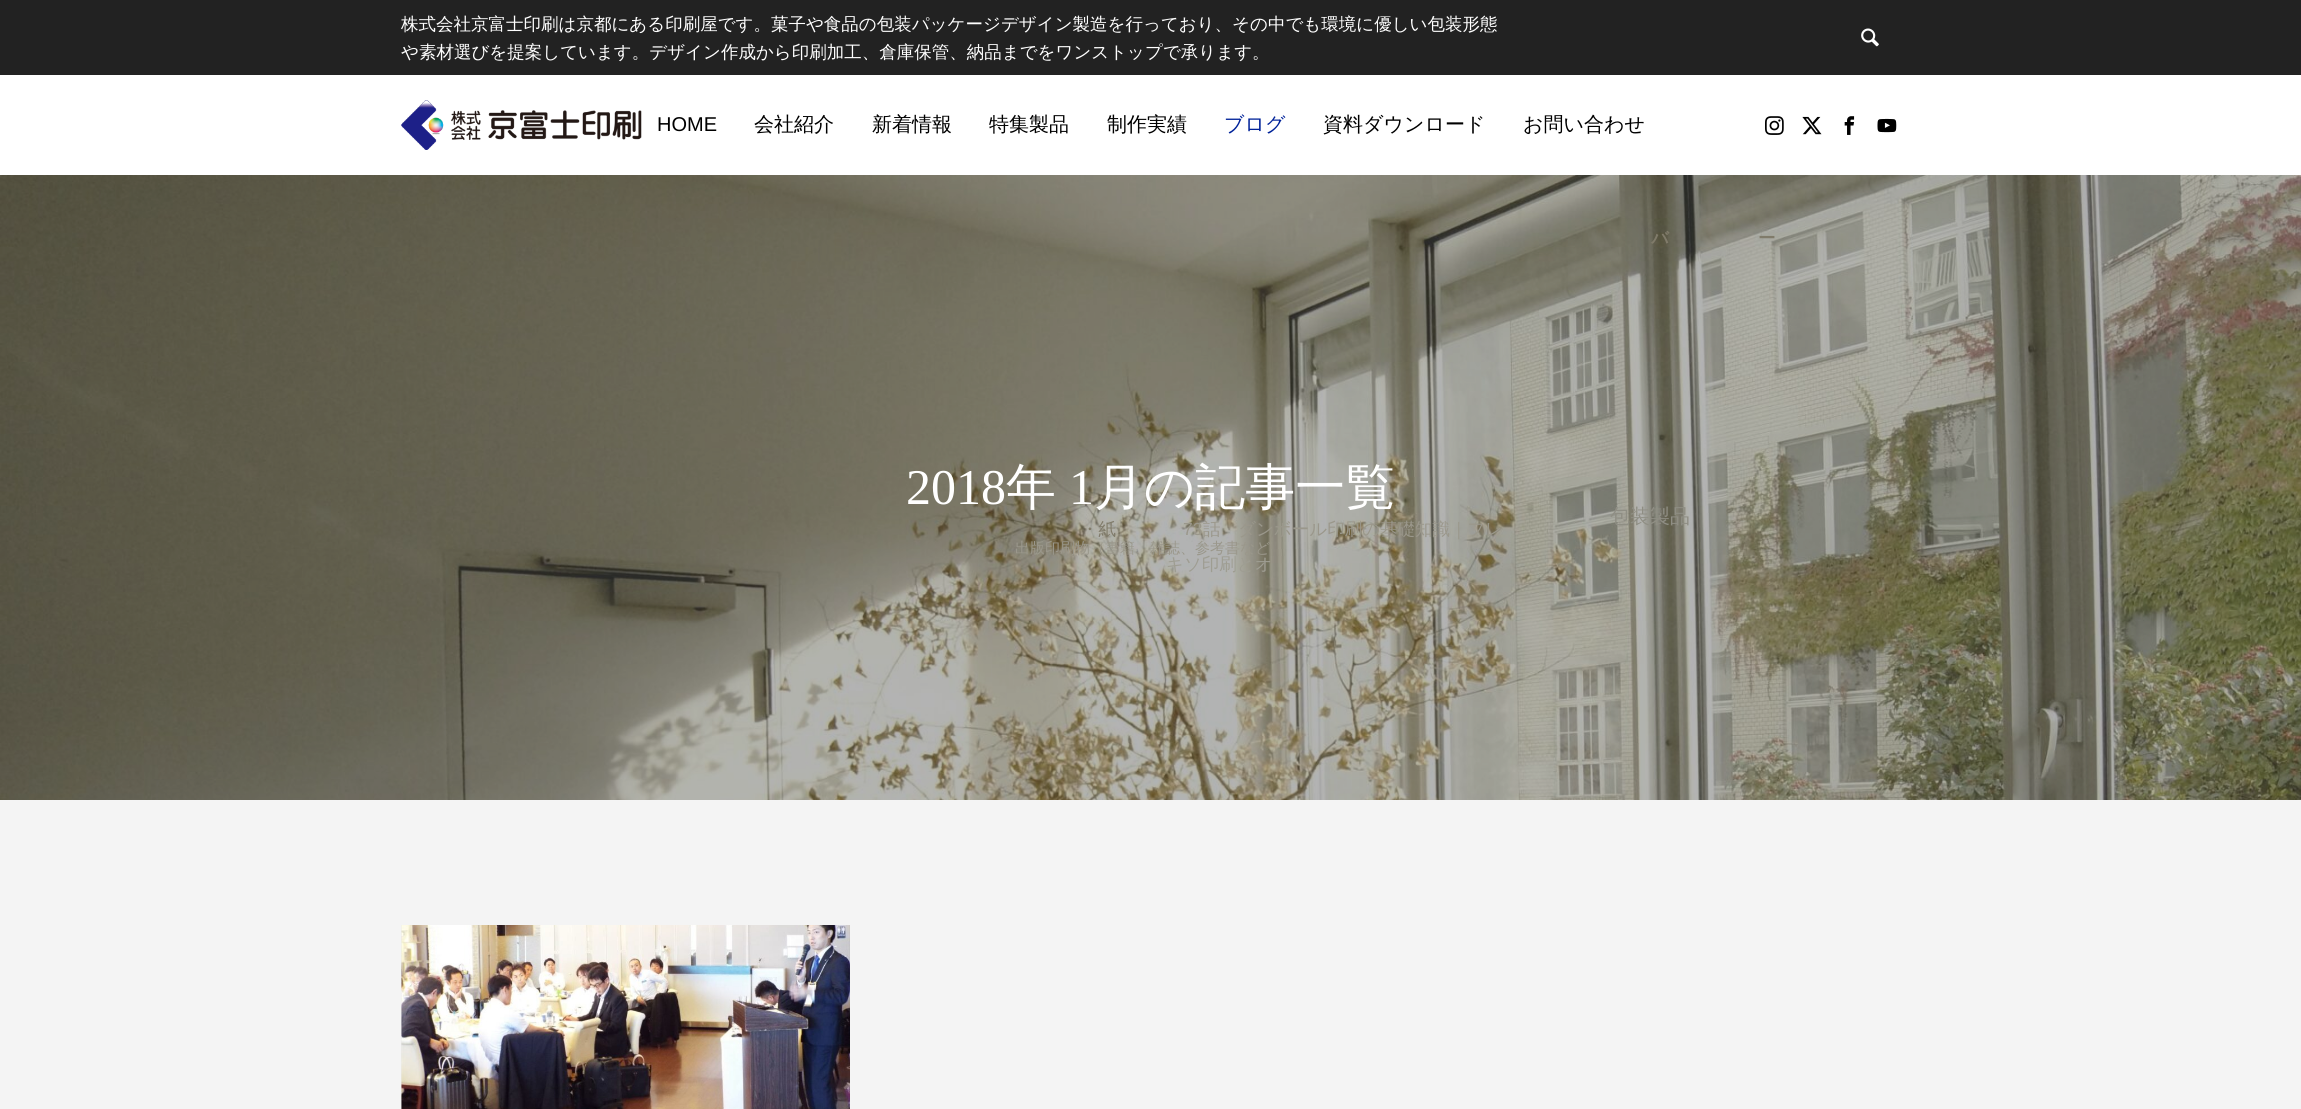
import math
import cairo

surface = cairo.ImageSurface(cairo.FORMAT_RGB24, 2301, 1109)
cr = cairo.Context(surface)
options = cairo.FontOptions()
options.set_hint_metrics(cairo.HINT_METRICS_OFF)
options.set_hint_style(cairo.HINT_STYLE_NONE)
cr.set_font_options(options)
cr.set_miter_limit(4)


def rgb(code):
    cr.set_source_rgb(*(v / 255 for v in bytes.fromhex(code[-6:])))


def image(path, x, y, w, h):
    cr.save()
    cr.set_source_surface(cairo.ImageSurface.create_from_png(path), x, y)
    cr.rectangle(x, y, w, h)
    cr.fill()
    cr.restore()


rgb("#ffffff")
cr.paint()
rgb("#222222")
cr.rectangle(0, 0, 2301, 75)
cr.fill()
image("img/1.png", 1861, 28, 18, 19)
image("img/2.png", 401, 100, 241, 50)
image("img/3.png", 1765, 116, 19, 19)
image("img/4.png", 1802, 116, 20, 19)
image("img/5.png", 1844, 116, 11, 19)
image("img/6.png", 1877, 118, 20, 15)
image("img/7.png", 0, 175, 2301, 625)
rgb("#f4f4f4")
cr.rectangle(0, 800, 2301, 309)
cr.fill()
image("img/8.png", 401, 925, 449, 184)
cr.select_font_face("WenQuanYi Zen Hei Medium")
cr.set_font_size(17.5)
rgb("#ffffff")
cr.move_to(401, 30)
cr.show_text("株式会社京富士印刷は京都にある印刷屋です。菓子や食品の包装パッケージデザイン製造を行っており、その中でも環境に優しい包装形態")
cr.move_to(401, 58)
cr.show_text("や素材選びを提案しています。デザイン作成から印刷加工、倉庫保管、納品までをワンストップで承ります。")
cr.select_font_face("Liberation Sans")
cr.set_font_size(20)
rgb("#000000")
cr.move_to(657, 131)
cr.show_text("HOME")
cr.select_font_face("WenQuanYi Zen Hei Medium")
for x, y, s in [
    (754, 131, "会社紹介"),
    (872, 131, "新着情報"),
    (989, 131, "特集製品"),
    (1107, 131, "制作実績"),
]:
    cr.move_to(x, y)
    cr.show_text(s)
rgb("#002299")
cr.move_to(1224, 131)
cr.show_text("ブログ")
rgb("#000000")
cr.move_to(1323, 131)
cr.show_text("資料ダウンロード")
cr.move_to(1523, 131)
cr.show_text("お問い合わせ")
cr.select_font_face("WenQuanYi Zen Hei", cairo.FONT_SLANT_NORMAL, cairo.FONT_WEIGHT_BOLD)
cr.set_font_size(17.5)
rgb("#807b6a")
cr.move_to(1651, 244)
cr.show_text("バ")
cr.move_to(1758, 244)
cr.show_text("ー")
cr.select_font_face("WenQuanYi Zen Hei Medium")
cr.move_to(1081, 535)
cr.show_text("・紙")
cr.select_font_face("Liberation Sans")
rgb("#9a978b")
cr.move_to(1183, 535)
cr.show_text("73")
cr.select_font_face("WenQuanYi Zen Hei Medium")
cr.move_to(1203, 535)
cr.show_text("話　ダンボール印刷の基礎知識｜フレ")
rgb("#9e9d92")
cr.move_to(1166, 570)
cr.show_text("キソ印刷とオ")
cr.set_font_size(20)
rgb("#8f8e84")
cr.move_to(1610, 523)
cr.show_text("包装製品")
cr.set_font_size(15)
rgb("#9a978b")
cr.move_to(1015, 553)
cr.show_text("出版印刷物（書籍、雑誌、参考書など")
cr.select_font_face("Liberation Serif")
cr.set_font_size(50)
rgb("#ffffff")
cr.move_to(906, 504)
cr.show_text("2018")
cr.select_font_face("WenQuanYi Zen Hei Medium")
cr.move_to(1006, 504)
cr.show_text("年")
cr.select_font_face("Liberation Serif")
cr.move_to(1069, 504)
cr.show_text("1")
cr.select_font_face("WenQuanYi Zen Hei Medium")
cr.move_to(1094, 504)
cr.show_text("月の記事一覧")
surface.write_to_png("page.png")
